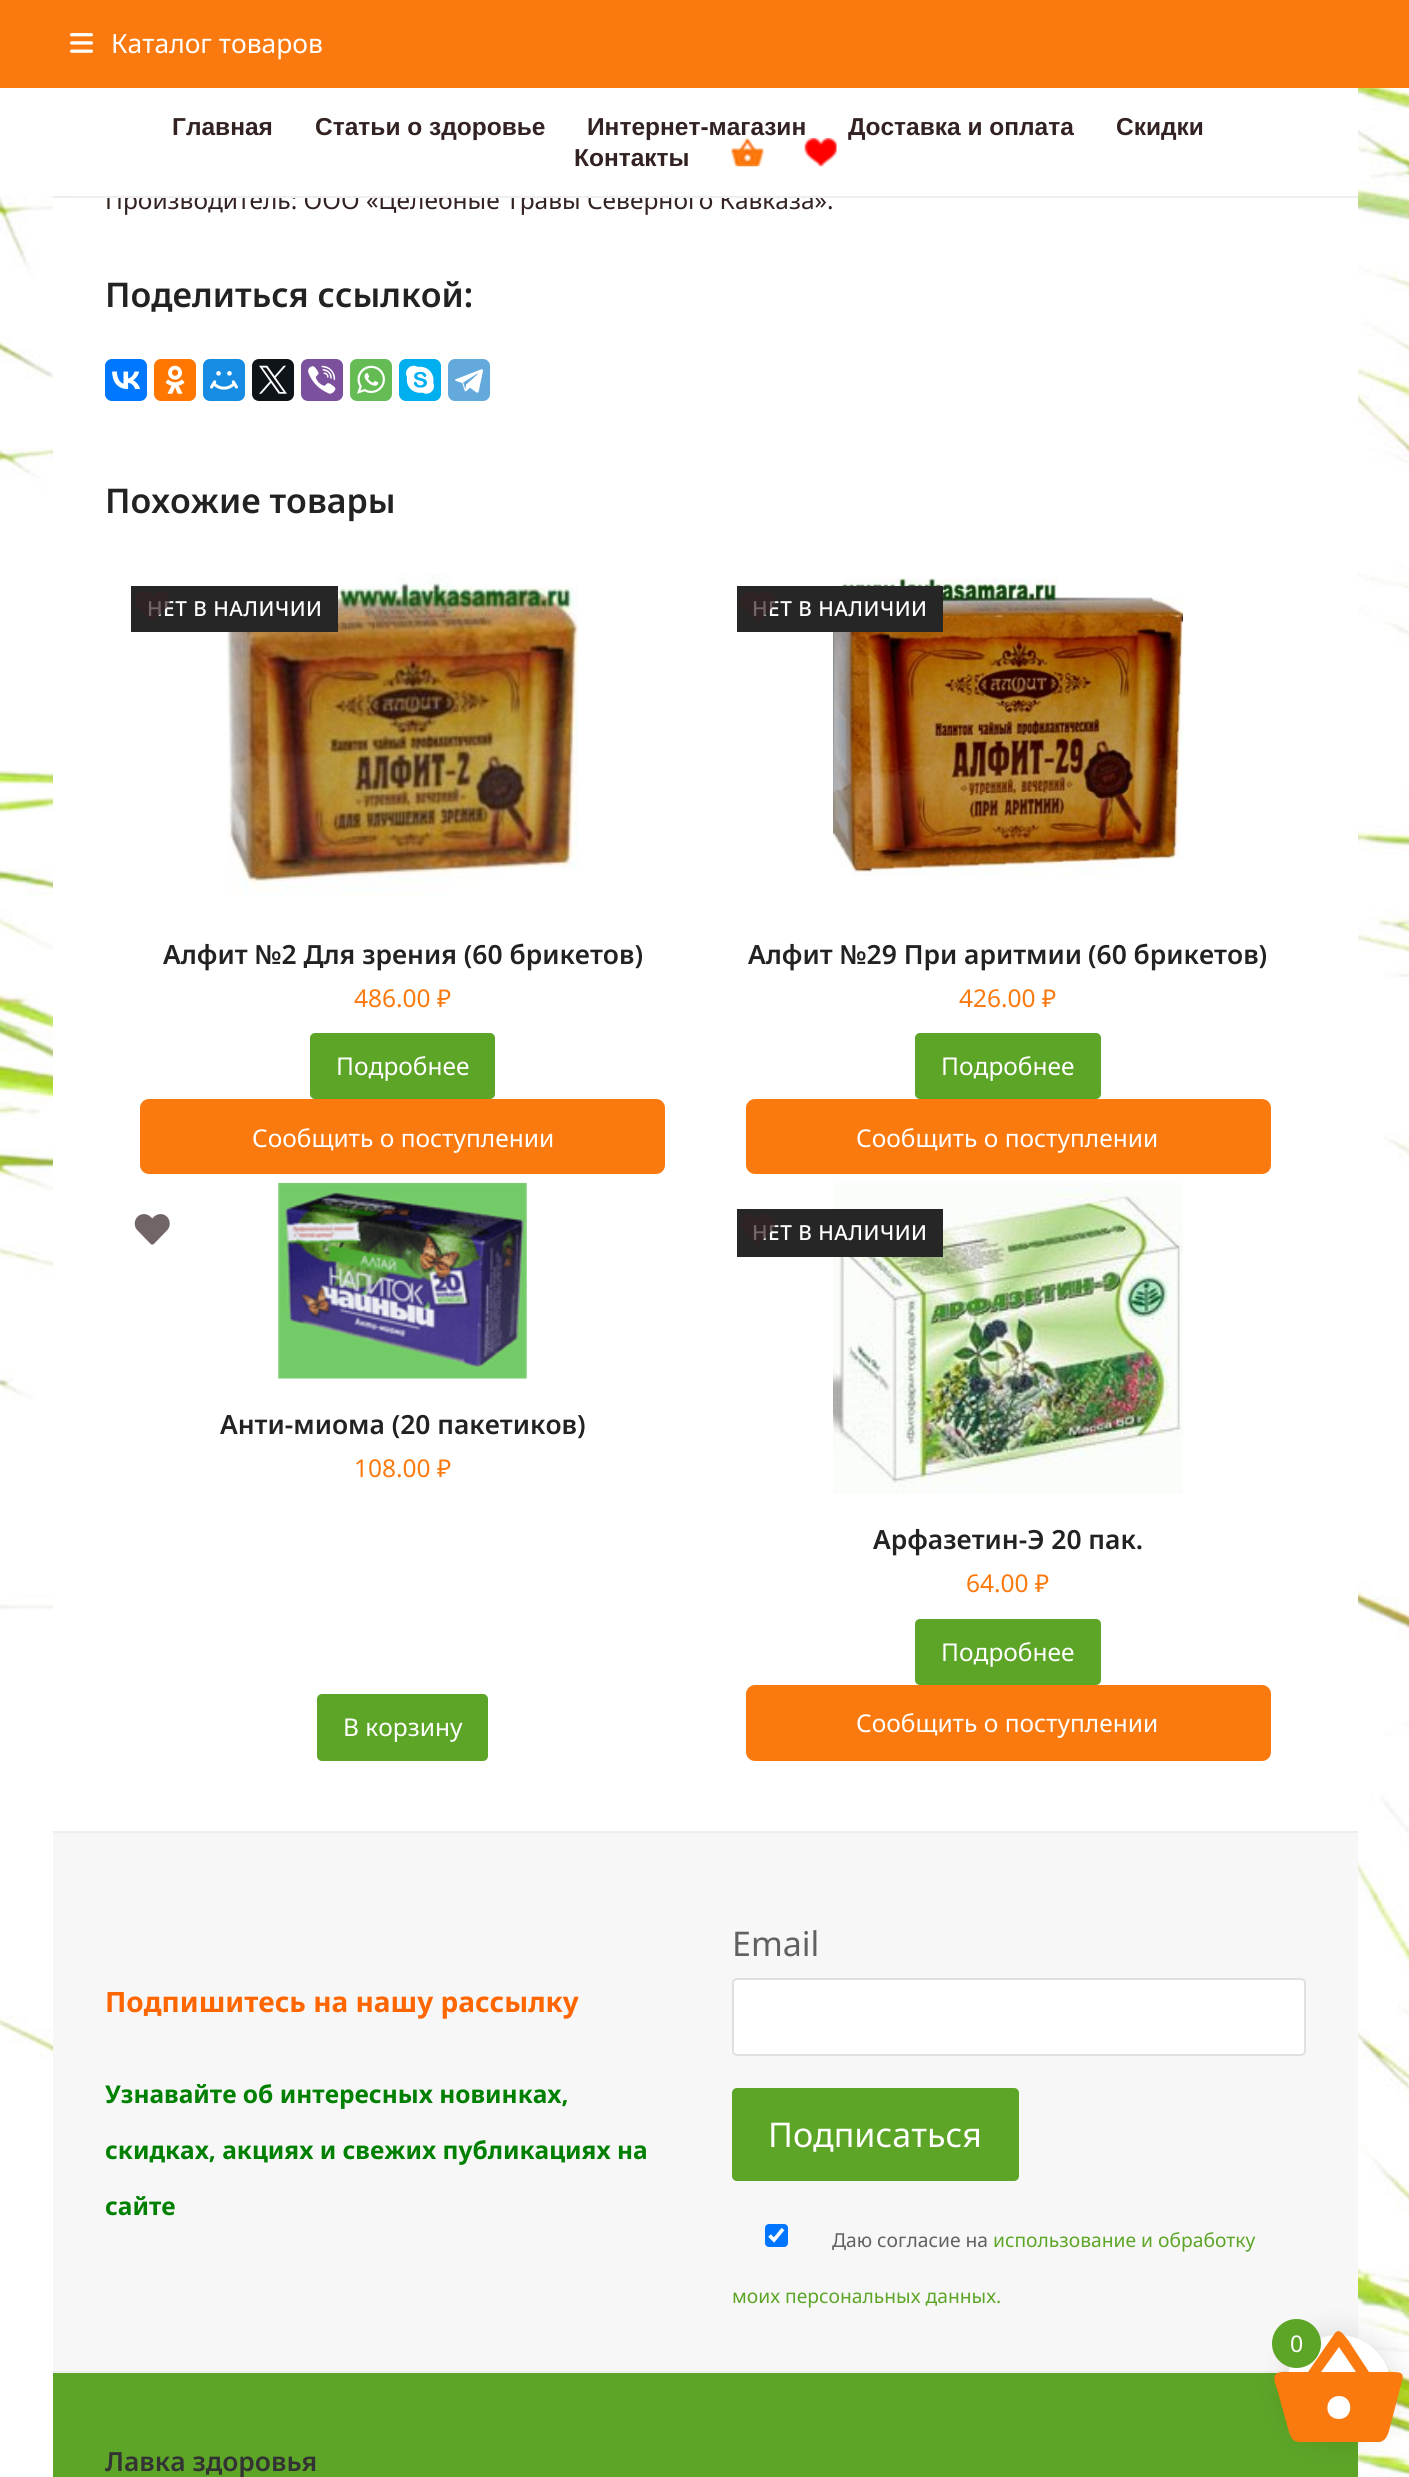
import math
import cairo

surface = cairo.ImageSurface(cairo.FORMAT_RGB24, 1409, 2477)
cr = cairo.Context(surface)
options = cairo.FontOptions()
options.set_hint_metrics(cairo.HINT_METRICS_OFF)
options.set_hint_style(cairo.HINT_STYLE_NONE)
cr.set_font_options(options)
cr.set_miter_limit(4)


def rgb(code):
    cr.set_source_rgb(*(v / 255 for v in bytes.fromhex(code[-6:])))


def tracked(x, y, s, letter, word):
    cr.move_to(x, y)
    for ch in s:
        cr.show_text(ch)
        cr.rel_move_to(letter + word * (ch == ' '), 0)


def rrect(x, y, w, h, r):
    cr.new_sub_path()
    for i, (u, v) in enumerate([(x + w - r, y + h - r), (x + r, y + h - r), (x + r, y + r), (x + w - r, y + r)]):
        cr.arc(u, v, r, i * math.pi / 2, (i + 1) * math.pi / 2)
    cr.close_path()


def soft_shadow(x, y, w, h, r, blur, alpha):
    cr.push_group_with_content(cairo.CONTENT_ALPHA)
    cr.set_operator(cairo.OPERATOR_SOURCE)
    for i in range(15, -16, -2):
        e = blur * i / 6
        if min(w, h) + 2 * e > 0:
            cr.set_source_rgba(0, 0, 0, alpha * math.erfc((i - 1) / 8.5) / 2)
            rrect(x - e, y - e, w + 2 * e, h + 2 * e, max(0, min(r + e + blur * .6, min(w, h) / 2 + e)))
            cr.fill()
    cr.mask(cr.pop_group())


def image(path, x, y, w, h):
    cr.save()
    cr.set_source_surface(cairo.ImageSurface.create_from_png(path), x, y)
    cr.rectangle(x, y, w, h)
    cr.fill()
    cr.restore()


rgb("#ffffff")
cr.paint()
image("img/1.png", 0, 88, 1409, 2389)
rgb("#fb7a10")
cr.rectangle(0, 0, 1409, 88)
cr.fill()
image("img/2.png", 70, 33, 23, 20)
rgb("#ffffff")
cr.rectangle(53, 198, 1305, 1633)
cr.fill()
rgb("#0077ff")
rrect(105, 359, 42, 42, 7)
cr.fill()
image("img/5.png", 112, 371, 28, 18)
rgb("#ff7700")
rrect(154, 359, 42, 42, 7)
cr.fill()
image("img/6.png", 165, 365, 20, 29)
rgb("#168de2")
rrect(203, 359, 42, 42, 7)
cr.fill()
image("img/7.png", 210, 371, 28, 19)
rgb("#0f1419")
rrect(252, 359, 42, 42, 7)
cr.fill()
image("img/8.png", 259, 365, 28, 29)
rgb("#7b519d")
rrect(301, 359, 42, 42, 7)
cr.fill()
image("img/9.png", 308, 365, 28, 29)
rgb("#65bc54")
rrect(350, 359, 42, 42, 7)
cr.fill()
image("img/10.png", 357, 365, 28, 29)
rgb("#00aff0")
rrect(399, 359, 42, 42, 7)
cr.fill()
image("img/11.png", 406, 365, 28, 29)
rgb("#64a9dc")
rrect(448, 359, 42, 42, 7)
cr.fill()
image("img/12.png", 455, 369, 28, 24)
image("img/14.png", 227, 574, 351, 322)
rgb("#262626")
cr.rectangle(131, 586, 207, 46)
cr.fill()
rgb("#5ca527")
rrect(310, 1033, 185, 66, 5)
cr.fill()
rgb("#fb7a10")
rrect(140, 1099, 525, 75, 9)
cr.fill()
image("img/16.png", 833, 577, 350, 300)
rgb("#262626")
cr.rectangle(737, 586, 206, 46)
cr.fill()
rgb("#5ca527")
rrect(915, 1033, 186, 66, 5)
cr.fill()
rgb("#fb7a10")
rrect(746, 1099, 525, 75, 9)
cr.fill()
image("img/17.png", 134, 1214, 36, 31)
image("img/18.png", 278, 1182, 249, 197)
rgb("#5ca527")
rrect(317, 1694, 171, 67, 5)
cr.fill()
image("img/20.png", 833, 1183, 350, 311)
rgb("#262626")
cr.rectangle(737, 1209, 206, 48)
cr.fill()
rgb("#5ca527")
rrect(915, 1619, 186, 66, 5)
cr.fill()
rgb("#fb7a10")
rrect(746, 1685, 525, 76, 9)
cr.fill()
for x, y, w, h, color in [
    (53, 1833, 1305, 538, "#f7f7f7"),
    (53, 1831, 1305, 2, "#eeeeee"),
    (53, 2371, 1236, 2, "#eeeeee"),
]:
    rgb(color)
    cr.rectangle(x, y, w, h)
    cr.fill()
rgb("#ffffff")
rrect(733, 1979, 572, 76, 4)
cr.fill_preserve()
rgb("#e0e0e0")
cr.stroke()
rgb("#5ca527")
rrect(732, 2088, 287, 93, 5)
cr.fill()
rgb("#0075ff")
rrect(765, 2224, 23, 23, 4)
cr.fill()
cr.new_path()
cr.move_to(769.5, 2235.5)
cr.line_to(774, 2240)
cr.line_to(783, 2229)
rgb("#ffffff")
cr.set_line_width(3.6)
cr.stroke()
rgb("#5ca527")
cr.rectangle(53, 2373, 1305, 104)
cr.fill()
rgb("#000000")
soft_shadow(1283, 2331, 112, 112, 56, 13, 0.1)
rgb("#ffffff")
cr.arc(1338.5, 2387.5, 52.5, 0, 2 * math.pi)
cr.fill()
rgb("#fb7a10")
cr.new_path()
cr.move_to(1339, 2419)
cr.curve_to(1354, 2419, 1354, 2396, 1339, 2396)
cr.curve_to(1324, 2396, 1323, 2419, 1339, 2419)
cr.close_path()
cr.move_to(1321, 2372)
cr.line_to(1356, 2372)
cr.line_to(1339, 2347)
cr.close_path()
cr.move_to(1369, 2372)
cr.line_to(1392, 2372)
cr.curve_to(1404, 2372, 1404, 2374, 1401, 2385)
cr.line_to(1391, 2423)
cr.curve_to(1389, 2430, 1388, 2440, 1380, 2442)
cr.line_to(1313, 2442)
cr.curve_to(1293, 2442, 1292, 2444, 1287, 2425)
cr.line_to(1277, 2389)
cr.curve_to(1276, 2385, 1272, 2378, 1276, 2374)
cr.curve_to(1280, 2371, 1286, 2372, 1290, 2372)
cr.line_to(1308, 2372)
cr.line_to(1335, 2333)
cr.curve_to(1340, 2327, 1345, 2337, 1348, 2340)
cr.close_path()
cr.fill()
rgb("#5ca527")
cr.arc(1296.5, 2343.5, 24.5, 0, 2 * math.pi)
cr.fill()
cr.select_font_face("Noto Sans")
cr.set_font_size(26.4)
rgb("#ffffff")
cr.move_to(111, 53)
cr.show_text("Каталог товаров")
cr.set_font_size(24.5)
rgb("#332222")
cr.move_to(105, 209)
cr.show_text("Производитель: ООО «Целебные Травы Северного Кавказа».")
rgb("#ffffff")
cr.rectangle(107, 88, 1251, 108)
cr.fill()
cr.select_font_face("Liberation Sans", cairo.FONT_SLANT_NORMAL, cairo.FONT_WEIGHT_BOLD)
rgb("#332222")
cr.move_to(587, 135)
cr.show_text("Интернет-магазин")
image("img/4.png", 804, 138, 33, 29)
image("img/3.png", 731, 138, 33, 29)
for x, y, s in [
    (574, 166, "Контакты"),
    (1116, 135, "Скидки"),
    (848, 135, "Доставка и оплата"),
    (315, 135, "Статьи о здоровье"),
    (172, 135, "Главная"),
]:
    cr.move_to(x, y)
    cr.show_text(s)
rgb("#eeeeee")
cr.rectangle(53, 196, 1305, 2)
cr.fill()
cr.select_font_face("Noto Sans SemiBold")
cr.set_font_size(34)
rgb("#222222")
cr.move_to(105, 307)
cr.show_text("Поделиться ссылкой:")
cr.move_to(105, 513)
cr.show_text("Похожие товары")
cr.select_font_face("Noto Sans Medium")
cr.set_font_size(20.75)
rgb("#ffffff")
tracked(147, 616, "НЕТ В НАЛИЧИИ", 0.5, 0)
image("img/13.png", 135, 591, 35, 31)
cr.select_font_face("Noto Sans SemiBold")
cr.set_font_size(26.4)
rgb("#222222")
cr.move_to(163, 964)
cr.show_text("Алфит №2 Для зрения (60 брикетов)")
cr.select_font_face("Noto Sans")
cr.set_font_size(24.5)
rgb("#fb7a10")
cr.move_to(354, 1007)
cr.show_text("486.00 ₽")
rgb("#ffffff")
cr.move_to(336, 1075)
cr.show_text("Подробнее")
cr.move_to(252, 1147)
cr.show_text("Сообщить о поступлении")
cr.select_font_face("Noto Sans Medium")
cr.set_font_size(20.75)
tracked(752, 616, "НЕТ В НАЛИЧИИ", 0.5, 0)
image("img/15.png", 740, 591, 36, 31)
cr.select_font_face("Noto Sans SemiBold")
cr.set_font_size(26.4)
rgb("#222222")
cr.move_to(748, 964)
cr.show_text("Алфит №29 При аритмии")
cr.move_to(1088, 964)
cr.show_text("(60 брикетов)")
cr.select_font_face("Noto Sans")
cr.set_font_size(24.5)
rgb("#fb7a10")
cr.move_to(959, 1007)
cr.show_text("426.00 ₽")
rgb("#ffffff")
cr.move_to(941, 1075)
cr.show_text("Подробнее")
cr.move_to(856, 1147)
cr.show_text("Сообщить о поступлении")
cr.select_font_face("Noto Sans SemiBold")
cr.set_font_size(26.4)
rgb("#222222")
cr.move_to(220, 1434)
cr.show_text("Анти-миома (20 пакетиков)")
cr.select_font_face("Noto Sans")
cr.set_font_size(24.5)
rgb("#fb7a10")
cr.move_to(354, 1477)
cr.show_text("108.00 ₽")
rgb("#ffffff")
cr.move_to(343, 1736)
cr.show_text("В корзину")
cr.select_font_face("Noto Sans Medium")
cr.set_font_size(20.75)
tracked(752, 1240, "НЕТ В НАЛИЧИИ", 0.5, 0)
image("img/19.png", 740, 1214, 36, 31)
cr.select_font_face("Noto Sans SemiBold")
cr.set_font_size(26.4)
rgb("#222222")
cr.move_to(873, 1549)
cr.show_text("Арфазетин-Э 20 пак.")
cr.select_font_face("Noto Sans")
cr.set_font_size(24.5)
rgb("#fb7a10")
cr.move_to(966, 1592)
cr.show_text("64.00 ₽")
rgb("#ffffff")
cr.move_to(941, 1661)
cr.show_text("Подробнее")
cr.move_to(856, 1732)
cr.show_text("Сообщить о поступлении")
cr.select_font_face("Noto Sans", cairo.FONT_SLANT_NORMAL, cairo.FONT_WEIGHT_BOLD)
cr.set_font_size(28)
rgb("#ff6600")
cr.move_to(105, 2012)
cr.show_text("Подпишитесь на нашу рассылку")
cr.set_font_size(24.5)
rgb("#008000")
for x, y, s in [
    (105, 2103, "Узнавайте об интересных новинках,"),
    (105, 2159, "скидках, акциях и свежих публикациях на"),
    (105, 2215, "сайте"),
]:
    cr.move_to(x, y)
    cr.show_text(s)
cr.select_font_face("Noto Sans")
cr.set_font_size(34)
rgb("#616161")
cr.move_to(732, 1956)
cr.show_text("Email")
rgb("#ffffff")
cr.move_to(768, 2147)
cr.show_text("Подписаться")
cr.set_font_size(19.25)
rgb("#616161")
cr.move_to(832, 2247)
cr.show_text("Даю согласие на")
rgb("#5ca527")
cr.move_to(993, 2247)
cr.show_text("использование и обработку")
cr.move_to(732, 2303)
cr.show_text("моих персональных данных.")
cr.select_font_face("Noto Sans SemiBold")
cr.set_font_size(26.4)
rgb("#333333")
cr.move_to(105, 2471)
cr.show_text("Лавка здоровья")
cr.select_font_face("Noto Sans")
cr.set_font_size(23)
rgb("#ffffff")
cr.move_to(1290, 2352)
cr.show_text("0")
surface.write_to_png("page.png")
